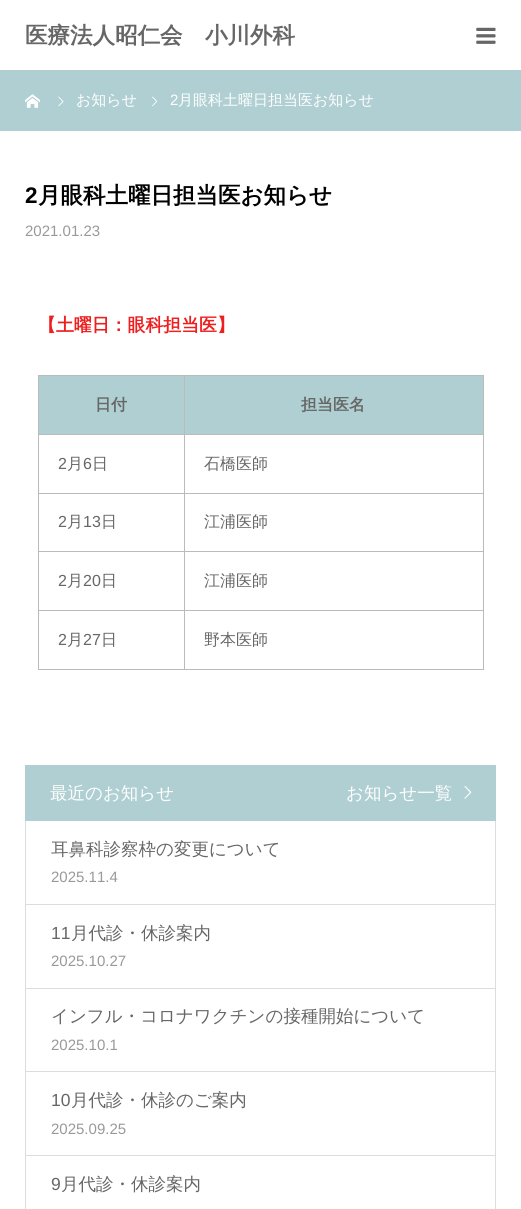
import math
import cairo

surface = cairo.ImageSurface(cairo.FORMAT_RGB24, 521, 1209)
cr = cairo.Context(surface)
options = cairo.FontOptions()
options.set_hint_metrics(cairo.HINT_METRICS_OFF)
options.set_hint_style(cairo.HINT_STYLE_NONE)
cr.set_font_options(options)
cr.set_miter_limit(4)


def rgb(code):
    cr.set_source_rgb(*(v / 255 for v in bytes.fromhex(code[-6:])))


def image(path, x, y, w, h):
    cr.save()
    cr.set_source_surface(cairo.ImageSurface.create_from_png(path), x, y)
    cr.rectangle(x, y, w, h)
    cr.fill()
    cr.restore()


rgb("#ffffff")
cr.paint()
image("img/1.png", 476, 27, 20, 17)
rgb("#b0cfd2")
cr.rectangle(0, 70, 521, 61)
cr.fill()
image("img/2.png", 25, 94, 15, 14)
image("img/3.png", 58, 96, 6, 11)
image("img/4.png", 152, 96, 6, 11)
for x, y, w, h, color in [
    (39, 376, 145, 58, "#b0cfd2"),
    (184, 375, 300, 1, "#bbbbbb"),
    (184, 434, 300, 1, "#bbbbbb"),
    (184, 493, 300, 1, "#bbbbbb"),
    (184, 551, 300, 1, "#bbbbbb"),
    (184, 610, 300, 1, "#bbbbbb"),
    (483, 610, 1, 60, "#bbbbbb"),
    (184, 669, 300, 1, "#bbbbbb"),
    (184, 610, 1, 60, "#bbbbbb"),
    (38, 610, 147, 1, "#bbbbbb"),
    (184, 551, 1, 60, "#bbbbbb"),
    (38, 551, 147, 1, "#bbbbbb"),
    (184, 493, 1, 60, "#bbbbbb"),
    (38, 493, 147, 1, "#bbbbbb"),
    (184, 434, 1, 60, "#bbbbbb"),
    (38, 434, 147, 1, "#bbbbbb"),
    (184, 375, 1, 60, "#bbbbbb"),
    (38, 375, 147, 1, "#bbbbbb"),
    (38, 669, 147, 1, "#bbbbbb"),
    (38, 610, 1, 60, "#bbbbbb"),
    (38, 551, 1, 60, "#bbbbbb"),
    (38, 493, 1, 60, "#bbbbbb"),
    (38, 434, 1, 60, "#bbbbbb"),
    (38, 375, 1, 60, "#bbbbbb"),
    (185, 376, 298, 58, "#b0cfd2"),
    (483, 551, 1, 60, "#bbbbbb"),
    (483, 493, 1, 60, "#bbbbbb"),
    (483, 434, 1, 60, "#bbbbbb"),
    (483, 375, 1, 60, "#bbbbbb"),
    (25, 765, 471, 56, "#b0cfd2"),
]:
    rgb(color)
    cr.rectangle(x, y, w, h)
    cr.fill()
image("img/5.png", 464, 786, 8, 13)
for x, y, w, h, color in [
    (495, 821, 1, 388, "#dddddd"),
    (25, 821, 1, 388, "#dddddd"),
    (26, 904, 469, 1, "#dddddd"),
    (26, 988, 469, 1, "#dddddd"),
    (26, 1071, 469, 1, "#dddddd"),
    (26, 1155, 469, 1, "#dddddd"),
]:
    rgb(color)
    cr.rectangle(x, y, w, h)
    cr.fill()
cr.select_font_face("WenQuanYi Zen Hei", cairo.FONT_SLANT_NORMAL, cairo.FONT_WEIGHT_BOLD)
cr.set_font_size(22.5)
rgb("#666666")
cr.move_to(25, 43)
cr.show_text("医療法人昭仁会　小川外科")
cr.select_font_face("WenQuanYi Zen Hei Medium")
cr.set_font_size(15)
rgb("#ffffff")
cr.move_to(76, 105)
cr.show_text("お知らせ")
cr.select_font_face("Liberation Sans")
cr.move_to(170, 105)
cr.show_text("2")
cr.select_font_face("WenQuanYi Zen Hei Medium")
cr.move_to(178, 105)
cr.show_text("月眼科土曜日担当医お知らせ")
cr.select_font_face("Liberation Sans", cairo.FONT_SLANT_NORMAL, cairo.FONT_WEIGHT_BOLD)
cr.set_font_size(22.5)
rgb("#000000")
cr.move_to(25, 203)
cr.show_text("2")
cr.select_font_face("WenQuanYi Zen Hei", cairo.FONT_SLANT_NORMAL, cairo.FONT_WEIGHT_BOLD)
cr.move_to(38, 203)
cr.show_text("月眼科土曜日担当医お知らせ")
cr.select_font_face("Liberation Sans")
cr.set_font_size(15)
rgb("#999999")
cr.move_to(25, 236)
cr.show_text("2021.01.23")
cr.select_font_face("WenQuanYi Zen Hei", cairo.FONT_SLANT_NORMAL, cairo.FONT_WEIGHT_BOLD)
cr.set_font_size(17.9)
rgb("#ef1f1f")
cr.move_to(38, 331)
cr.show_text("【土曜日：眼科担当医】")
cr.set_font_size(16)
rgb("#666666")
cr.move_to(95, 410)
cr.show_text("日付")
cr.move_to(301, 410)
cr.show_text("担当医名")
cr.select_font_face("Liberation Sans")
cr.move_to(58, 469)
cr.show_text("2")
cr.select_font_face("WenQuanYi Zen Hei Medium")
cr.move_to(67, 469)
cr.show_text("月")
cr.select_font_face("Liberation Sans")
cr.move_to(83, 469)
cr.show_text("6")
cr.select_font_face("WenQuanYi Zen Hei Medium")
cr.move_to(92, 469)
cr.show_text("日")
cr.move_to(204, 469)
cr.show_text("石橋医師")
cr.select_font_face("Liberation Sans")
cr.move_to(58, 527)
cr.show_text("2")
cr.select_font_face("WenQuanYi Zen Hei Medium")
cr.move_to(67, 527)
cr.show_text("月")
cr.select_font_face("Liberation Sans")
cr.move_to(83, 527)
cr.show_text("13")
cr.select_font_face("WenQuanYi Zen Hei Medium")
cr.move_to(101, 527)
cr.show_text("日")
cr.move_to(204, 527)
cr.show_text("江浦医師")
cr.select_font_face("Liberation Sans")
cr.move_to(58, 586)
cr.show_text("2")
cr.select_font_face("WenQuanYi Zen Hei Medium")
cr.move_to(67, 586)
cr.show_text("月")
cr.select_font_face("Liberation Sans")
cr.move_to(83, 586)
cr.show_text("20")
cr.select_font_face("WenQuanYi Zen Hei Medium")
cr.move_to(101, 586)
cr.show_text("日")
cr.move_to(204, 586)
cr.show_text("江浦医師")
cr.select_font_face("Liberation Sans")
cr.move_to(58, 645)
cr.show_text("2")
cr.select_font_face("WenQuanYi Zen Hei Medium")
cr.move_to(67, 645)
cr.show_text("月")
cr.select_font_face("Liberation Sans")
cr.move_to(83, 645)
cr.show_text("27")
cr.select_font_face("WenQuanYi Zen Hei Medium")
cr.move_to(101, 645)
cr.show_text("日")
cr.move_to(204, 645)
cr.show_text("野本医師")
cr.set_font_size(17.5)
rgb("#ffffff")
cr.move_to(50, 799)
cr.show_text("最近のお知らせ")
cr.move_to(346, 799)
cr.show_text("お知らせ一覧")
rgb("#666666")
cr.move_to(51, 855)
cr.show_text("耳鼻科診察枠の変更について")
cr.select_font_face("Liberation Sans")
cr.set_font_size(15)
rgb("#999999")
cr.move_to(51, 882)
cr.show_text("2025.11.4")
cr.set_font_size(17.5)
rgb("#666666")
cr.move_to(51, 939)
cr.show_text("11")
cr.select_font_face("WenQuanYi Zen Hei Medium")
cr.move_to(71, 939)
cr.show_text("月代診・休診案内")
cr.select_font_face("Liberation Sans")
cr.set_font_size(15)
rgb("#999999")
cr.move_to(51, 966)
cr.show_text("2025.10.27")
cr.select_font_face("WenQuanYi Zen Hei Medium")
cr.set_font_size(17.5)
rgb("#666666")
cr.move_to(51, 1022)
cr.show_text("インフル・コロナワクチンの接種開始について")
cr.select_font_face("Liberation Sans")
cr.set_font_size(15)
rgb("#999999")
cr.move_to(51, 1050)
cr.show_text("2025.10.1")
cr.set_font_size(17.5)
rgb("#666666")
cr.move_to(51, 1106)
cr.show_text("10")
cr.select_font_face("WenQuanYi Zen Hei Medium")
cr.move_to(71, 1106)
cr.show_text("月代診・休診のご案内")
cr.select_font_face("Liberation Sans")
cr.set_font_size(15)
rgb("#999999")
cr.move_to(51, 1134)
cr.show_text("2025.09.25")
cr.set_font_size(17.5)
rgb("#666666")
cr.move_to(51, 1190)
cr.show_text("9")
cr.select_font_face("WenQuanYi Zen Hei Medium")
cr.move_to(61, 1190)
cr.show_text("月代診・休診案内")
surface.write_to_png("page.png")
